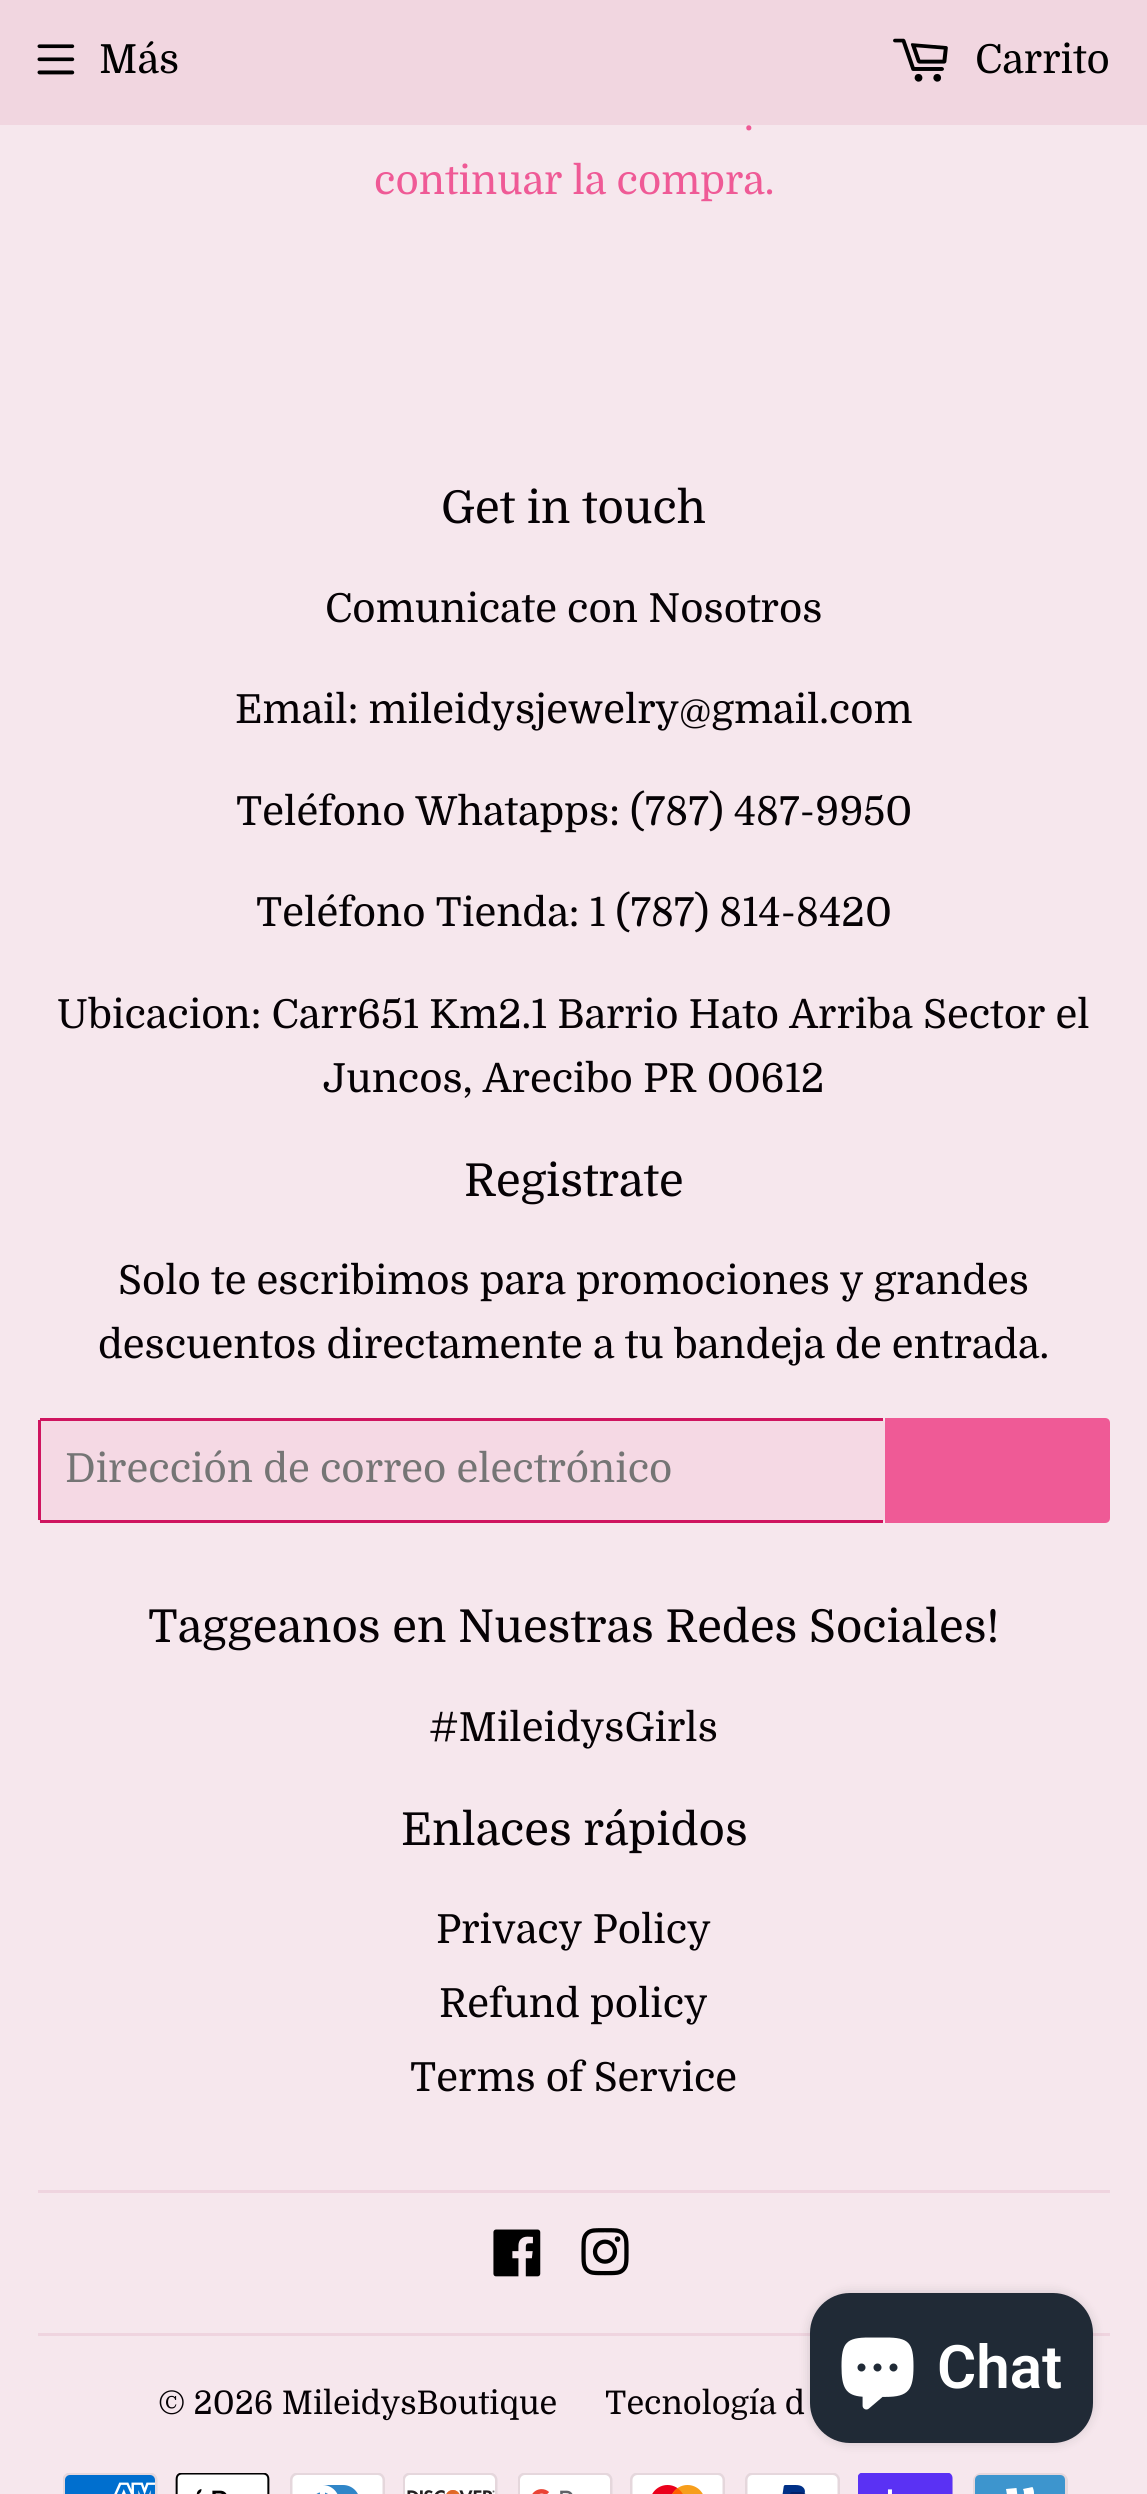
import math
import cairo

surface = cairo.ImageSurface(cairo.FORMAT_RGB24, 1147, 2494)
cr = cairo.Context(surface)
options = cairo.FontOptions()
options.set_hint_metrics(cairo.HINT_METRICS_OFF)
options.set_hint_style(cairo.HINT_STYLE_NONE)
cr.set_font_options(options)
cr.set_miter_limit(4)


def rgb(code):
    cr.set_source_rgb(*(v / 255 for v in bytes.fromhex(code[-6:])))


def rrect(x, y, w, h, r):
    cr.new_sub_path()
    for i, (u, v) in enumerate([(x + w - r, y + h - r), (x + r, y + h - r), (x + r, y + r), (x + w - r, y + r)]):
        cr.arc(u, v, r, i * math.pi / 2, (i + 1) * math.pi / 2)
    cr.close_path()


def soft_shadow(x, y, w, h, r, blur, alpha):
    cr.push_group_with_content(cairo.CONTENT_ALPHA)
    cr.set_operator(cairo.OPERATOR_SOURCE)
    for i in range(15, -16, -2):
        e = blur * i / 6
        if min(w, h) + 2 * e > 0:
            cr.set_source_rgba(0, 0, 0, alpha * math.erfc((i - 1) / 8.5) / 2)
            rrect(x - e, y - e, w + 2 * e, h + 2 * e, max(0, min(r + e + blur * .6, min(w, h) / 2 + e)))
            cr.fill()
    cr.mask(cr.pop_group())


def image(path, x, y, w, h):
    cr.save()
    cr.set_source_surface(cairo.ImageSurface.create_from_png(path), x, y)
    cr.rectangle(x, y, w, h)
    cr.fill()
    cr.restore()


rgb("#f6e7ed")
cr.paint()
rgb("#f1d6e0")
cr.rectangle(0, 0, 1147, 125)
cr.fill()
image("img/1.png", 37, 44, 38, 31)
image("img/2.png", 893, 38, 55, 44)
rgb("#f5d9e4")
rrect(38, 1418, 847, 105, 5)
cr.fill()
for x, y, w, h, color in [
    (40, 1418, 843, 3, "#cf145f"),
    (40, 1520, 843, 3, "#cf145f"),
    (38, 1420, 3, 100, "#cf145f"),
]:
    rgb(color)
    cr.rectangle(x, y, w, h)
    cr.fill()
rgb("#ef5a96")
cr.new_path()
cr.move_to(885, 1418)
cr.line_to(1105, 1418)
cr.curve_to(1108, 1418, 1110, 1420, 1110, 1423)
cr.line_to(1110, 1518)
cr.curve_to(1110, 1521, 1108, 1523, 1105, 1523)
cr.line_to(885, 1523)
cr.close_path()
cr.fill()
rgb("#efd4df")
cr.rectangle(38, 2190, 1072, 3)
cr.fill()
image("img/3.png", 493, 2229, 48, 48)
image("img/4.png", 581, 2228, 48, 48)
cr.rectangle(38, 2333, 1072, 3)
cr.fill()
image("img/5.png", 63, 2473, 95, 21)
image("img/6.png", 175, 2473, 95, 21)
image("img/7.png", 290, 2473, 95, 21)
image("img/8.png", 403, 2473, 95, 21)
image("img/9.png", 518, 2473, 95, 21)
image("img/10.png", 630, 2473, 95, 21)
image("img/11.png", 745, 2473, 95, 21)
image("img/12.png", 858, 2473, 95, 21)
rgb("#e5d7dc")
rrect(973, 2473, 95, 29, 8)
cr.fill()
rgb("#3d95ce")
cr.set_fill_rule(cairo.FILL_RULE_EVEN_ODD)
cr.new_path()
cr.move_to(1060, 2475)
cr.curve_to(1063, 2475, 1065, 2477, 1065, 2480)
cr.line_to(1065, 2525)
cr.curve_to(1065, 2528, 1063, 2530, 1060, 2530)
cr.line_to(980, 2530)
cr.curve_to(977, 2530, 975, 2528, 975, 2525)
cr.line_to(975, 2480)
cr.curve_to(975, 2477, 977, 2475, 980, 2475)
cr.line_to(1060, 2475)
cr.fill()
rgb("#ffffff")
cr.set_fill_rule(cairo.FILL_RULE_WINDING)
cr.new_path()
cr.move_to(1034, 2493.5)
cr.curve_to(1034, 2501, 1028, 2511, 1022.5, 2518)
cr.line_to(1011, 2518)
cr.line_to(1006, 2489)
cr.line_to(1016.5, 2488)
cr.line_to(1019, 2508.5)
cr.curve_to(1022, 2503, 1026, 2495.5, 1023, 2489)
cr.line_to(1032.5, 2487)
cr.curve_to(1033.5, 2489, 1034, 2491, 1034, 2493.5)
cr.close_path()
cr.fill()
rgb("#000000")
soft_shadow(810, 2293, 283, 150, 40, 6, 0.15)
rgb("#202a36")
rrect(810, 2293, 283, 150, 40)
cr.fill()
image("img/13.png", 841, 2337, 73, 73)
cr.select_font_face("Domine")
cr.set_font_size(40)
rgb("#000000")
cr.move_to(99, 73)
cr.show_text("Más")
cr.move_to(975, 73)
cr.show_text("Carrito")
rgb("#ef5a96")
cr.move_to(744, 130)
cr.show_text(".")
cr.move_to(374, 194)
cr.show_text("continuar la compra.")
cr.set_font_size(45.3)
rgb("#060205")
cr.move_to(441, 523)
cr.show_text("Get in touch")
cr.set_font_size(40)
for x, y, s in [
    (325, 622, "Comunicate con Nosotros"),
    (235, 723, "Email: mileidysjewelry@gmail.com"),
    (236, 825, "Teléfono Whatapps: (787) 487-9950"),
    (256, 926, "Teléfono Tienda: 1 (787) 814-8420"),
    (57, 1028, "Ubicacion: Carr651 Km2.1 Barrio Hato Arriba Sector el"),
    (323, 1092, "Juncos, Arecibo PR 00612"),
]:
    cr.move_to(x, y)
    cr.show_text(s)
cr.set_font_size(45.3)
cr.move_to(464, 1196)
cr.show_text("Registrate")
cr.set_font_size(40)
cr.move_to(118, 1294)
cr.show_text("Solo te escribimos para promociones y grandes")
cr.move_to(98, 1358)
cr.show_text("descuentos directamente a tu bandeja de entrada.")
rgb("#757575")
cr.move_to(65, 1482)
cr.show_text("Dirección de correo electrónico")
cr.set_font_size(45.3)
rgb("#060205")
cr.move_to(148, 1642)
cr.show_text("Taggeanos en Nuestras Redes Sociales!")
cr.set_font_size(40)
cr.move_to(429, 1741)
cr.show_text("#MileidysGirls")
cr.set_font_size(45.3)
cr.move_to(401, 1845)
cr.show_text("Enlaces rápidos")
cr.set_font_size(40)
for x, y, s in [
    (436, 1943, "Privacy Policy"),
    (439, 2017, "Refund policy"),
    (410, 2091, "Terms of Service"),
]:
    cr.move_to(x, y)
    cr.show_text(s)
cr.set_font_size(32.5)
cr.move_to(158, 2414)
cr.show_text("© 2026 MileidysBoutique")
cr.move_to(605, 2414)
cr.show_text("Tecnología d")
cr.select_font_face("Roboto SemiBold")
cr.set_font_size(60)
rgb("#ffffff")
cr.move_to(937, 2388)
cr.show_text("Chat")
surface.write_to_png("page.png")
